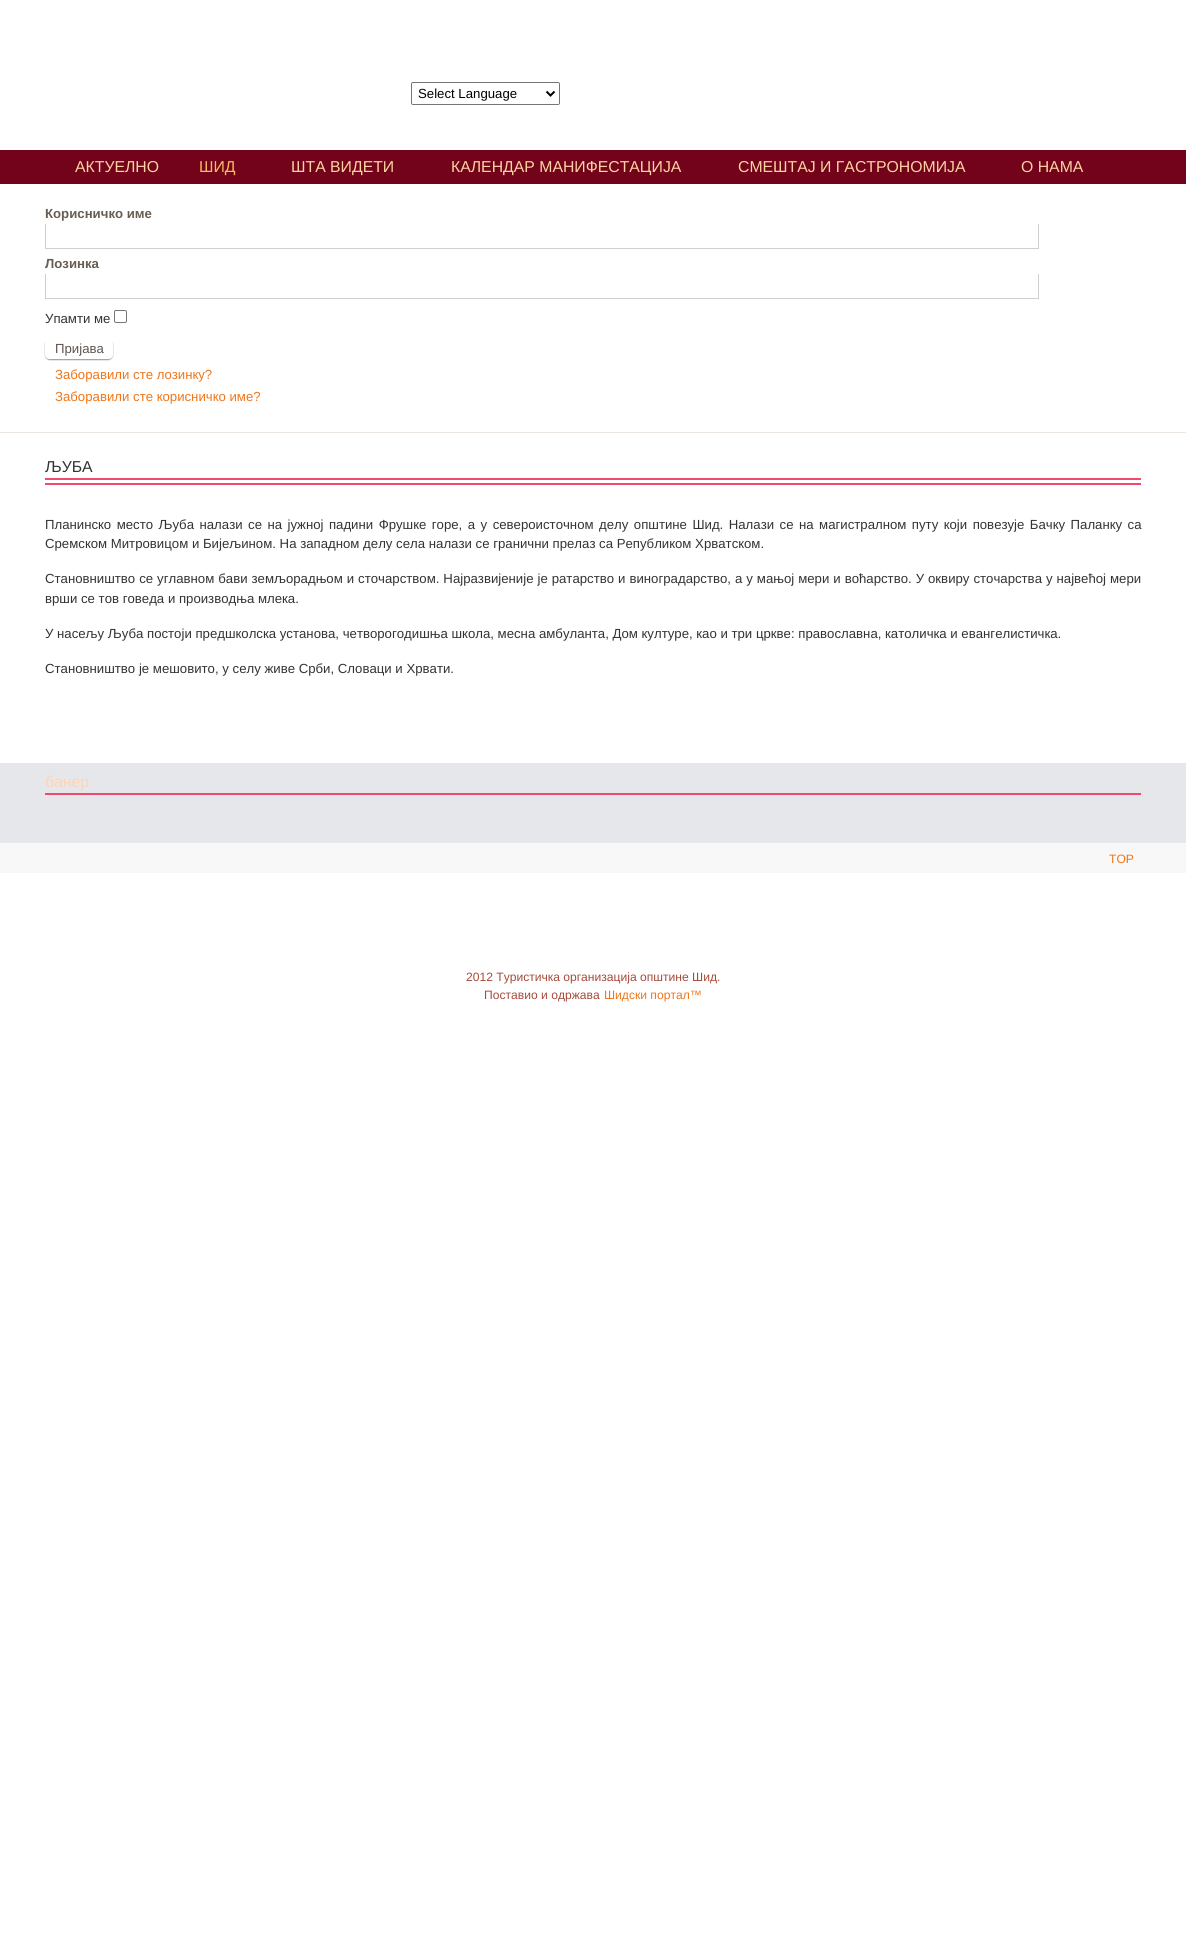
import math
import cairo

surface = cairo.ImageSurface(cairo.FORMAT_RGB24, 1186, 1939)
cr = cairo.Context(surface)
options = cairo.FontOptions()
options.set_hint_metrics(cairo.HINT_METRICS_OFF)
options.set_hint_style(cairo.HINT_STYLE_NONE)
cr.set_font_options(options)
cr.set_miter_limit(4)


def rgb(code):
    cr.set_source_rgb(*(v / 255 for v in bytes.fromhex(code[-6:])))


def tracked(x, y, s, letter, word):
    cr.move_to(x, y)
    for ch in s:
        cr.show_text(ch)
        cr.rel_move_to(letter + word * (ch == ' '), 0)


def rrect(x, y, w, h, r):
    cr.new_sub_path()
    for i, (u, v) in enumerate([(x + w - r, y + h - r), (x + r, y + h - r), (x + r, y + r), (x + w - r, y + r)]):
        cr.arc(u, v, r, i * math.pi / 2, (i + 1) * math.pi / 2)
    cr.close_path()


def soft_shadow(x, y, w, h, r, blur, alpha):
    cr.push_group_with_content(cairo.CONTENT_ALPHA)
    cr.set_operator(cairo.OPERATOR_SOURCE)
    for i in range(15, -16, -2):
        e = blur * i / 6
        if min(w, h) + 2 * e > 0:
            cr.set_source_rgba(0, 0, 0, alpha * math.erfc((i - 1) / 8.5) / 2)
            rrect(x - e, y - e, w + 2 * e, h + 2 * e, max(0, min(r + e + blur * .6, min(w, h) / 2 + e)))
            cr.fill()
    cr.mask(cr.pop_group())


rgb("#ffffff")
cr.paint()
rrect(411.5, 82.5, 148, 22, 1.5)
rgb("#767676")
cr.set_line_width(1)
cr.stroke()
cr.new_path()
cr.move_to(546.5, 91.5)
cr.line_to(550.5, 95.5)
cr.line_to(554.5, 91.5)
rgb("#000000")
cr.set_line_width(2)
cr.stroke()
for x, y, w, h, color in [
    (0, 150, 1186, 34, "#73031b"),
    (0, 432, 1186, 1, "#ebe6e2"),
    (1038, 224, 1, 25, "#d0cfcd"),
    (45, 248, 994, 1, "#d0cfcd"),
    (45, 224, 1, 25, "#d0cfcd"),
    (1038, 274, 1, 25, "#d0cfcd"),
    (45, 298, 994, 1, "#d0cfcd"),
    (45, 274, 1, 25, "#d0cfcd"),
]:
    rgb(color)
    cr.rectangle(x, y, w, h)
    cr.fill()
rrect(114.5, 310.5, 12, 12, 1.5)
rgb("#767676")
cr.set_line_width(1)
cr.stroke()
cr.save()
cr.set_fill_rule(cairo.FILL_RULE_EVEN_ODD)
cr.new_path()
cr.move_to(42, 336)
cr.line_to(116, 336)
cr.line_to(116, 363)
cr.line_to(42, 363)
cr.close_path()
cr.move_to(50, 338)
cr.line_to(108, 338)
cr.curve_to(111, 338, 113, 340, 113, 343)
cr.line_to(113, 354)
cr.curve_to(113, 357, 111, 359, 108, 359)
cr.line_to(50, 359)
cr.curve_to(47, 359, 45, 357, 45, 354)
cr.line_to(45, 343)
cr.curve_to(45, 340, 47, 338, 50, 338)
cr.close_path()
cr.clip()
rgb("#000000")
soft_shadow(45, 339, 68, 21, 5, 0.5, 0.4)
cr.restore()
for x, y, w, h, color in [
    (45, 483, 1096, 2, "#f24a6f"),
    (45, 478, 1096, 2, "#f24a6f"),
    (0, 763, 1186, 80, "#e6e7eb"),
    (45, 793, 1096, 2, "#f24a6f"),
    (0, 843, 1186, 30, "#f8f8f8"),
]:
    rgb(color)
    cr.rectangle(x, y, w, h)
    cr.fill()
cr.select_font_face("Liberation Sans")
cr.set_font_size(13.2)
rgb("#000000")
cr.move_to(418, 98)
cr.show_text("Select Language")
cr.set_font_size(15.8)
rgb("#fdd3a1")
cr.move_to(75, 172)
cr.show_text("АКТУЕЛНО")
rgb("#f9bc61")
cr.move_to(199, 172)
cr.show_text("ШИД")
rgb("#fdd3a1")
for x, y, s in [
    (291, 172, "ШТА ВИДЕТИ"),
    (451, 172, "КАЛЕНДАР МАНИФЕСТАЦИЈА"),
    (738, 172, "СМЕШТАЈ И ГАСТРОНОМИЈА"),
    (1021, 172, "О НАМА"),
]:
    cr.move_to(x, y)
    cr.show_text(s)
cr.select_font_face("Liberation Sans", cairo.FONT_SLANT_NORMAL, cairo.FONT_WEIGHT_BOLD)
cr.set_font_size(13.2)
rgb("#695d51")
cr.move_to(45, 218)
cr.show_text("Корисничко име")
cr.move_to(45, 268)
cr.show_text("Лозинка")
cr.select_font_face("Liberation Sans")
rgb("#333333")
cr.move_to(45, 323)
cr.show_text("Упамти ме")
rgb("#5d544f")
cr.move_to(55, 353)
cr.show_text("Пријава")
rgb("#ef761a")
cr.move_to(55, 379)
cr.show_text("Заборавили сте лозинку?")
cr.move_to(55, 401)
cr.show_text("Заборавили сте корисничко име?")
cr.set_font_size(15.8)
rgb("#333333")
cr.move_to(45, 472)
cr.show_text("ЉУБА")
cr.set_font_size(13.2)
tracked(45, 529, "Планинско место Љуба налази се на јужној падини Фрушке горе, а у североисточном делу општине Шид. Налази се на магистралном путу који повезује Бачку Паланку са", 0, 1.8)
cr.move_to(45, 548)
cr.show_text("Сремском Митровицом и Бијељином. На западном делу села налази се гранични прелаз са Републиком Хрватском.")
tracked(45, 583, "Становништво се углавном бави земљорадњом и сточарством. Најразвијеније је ратарство и виноградарство, а у мањој мери и воћарство. У оквиру сточарства у највећој мери", 0, 0.3)
for x, y, s in [
    (45, 603, "врши се тов говеда и производња млека."),
    (45, 638, "У насељу Љуба постоји предшколска установа, четворогодишња школа, месна амбуланта, Дом културе, као и три цркве: православна, католичка и евангелистичка."),
    (45, 673, "Становништво је мешовито, у селу живе Срби, Словаци и Хрвати."),
]:
    cr.move_to(x, y)
    cr.show_text(s)
cr.set_font_size(15.8)
rgb("#fcd5b6")
cr.move_to(45, 787)
cr.show_text("банер")
cr.set_font_size(12.1)
rgb("#ef761a")
cr.move_to(1109, 863)
cr.show_text("TOP")
rgb("#a64a3a")
cr.move_to(466, 981)
cr.show_text("2012 Туристичка организација општине Шид.")
cr.move_to(484, 999)
cr.show_text("Поставио и одржава")
rgb("#ef761a")
cr.move_to(604, 999)
cr.show_text("Шидски портал™")
surface.write_to_png("page.png")
